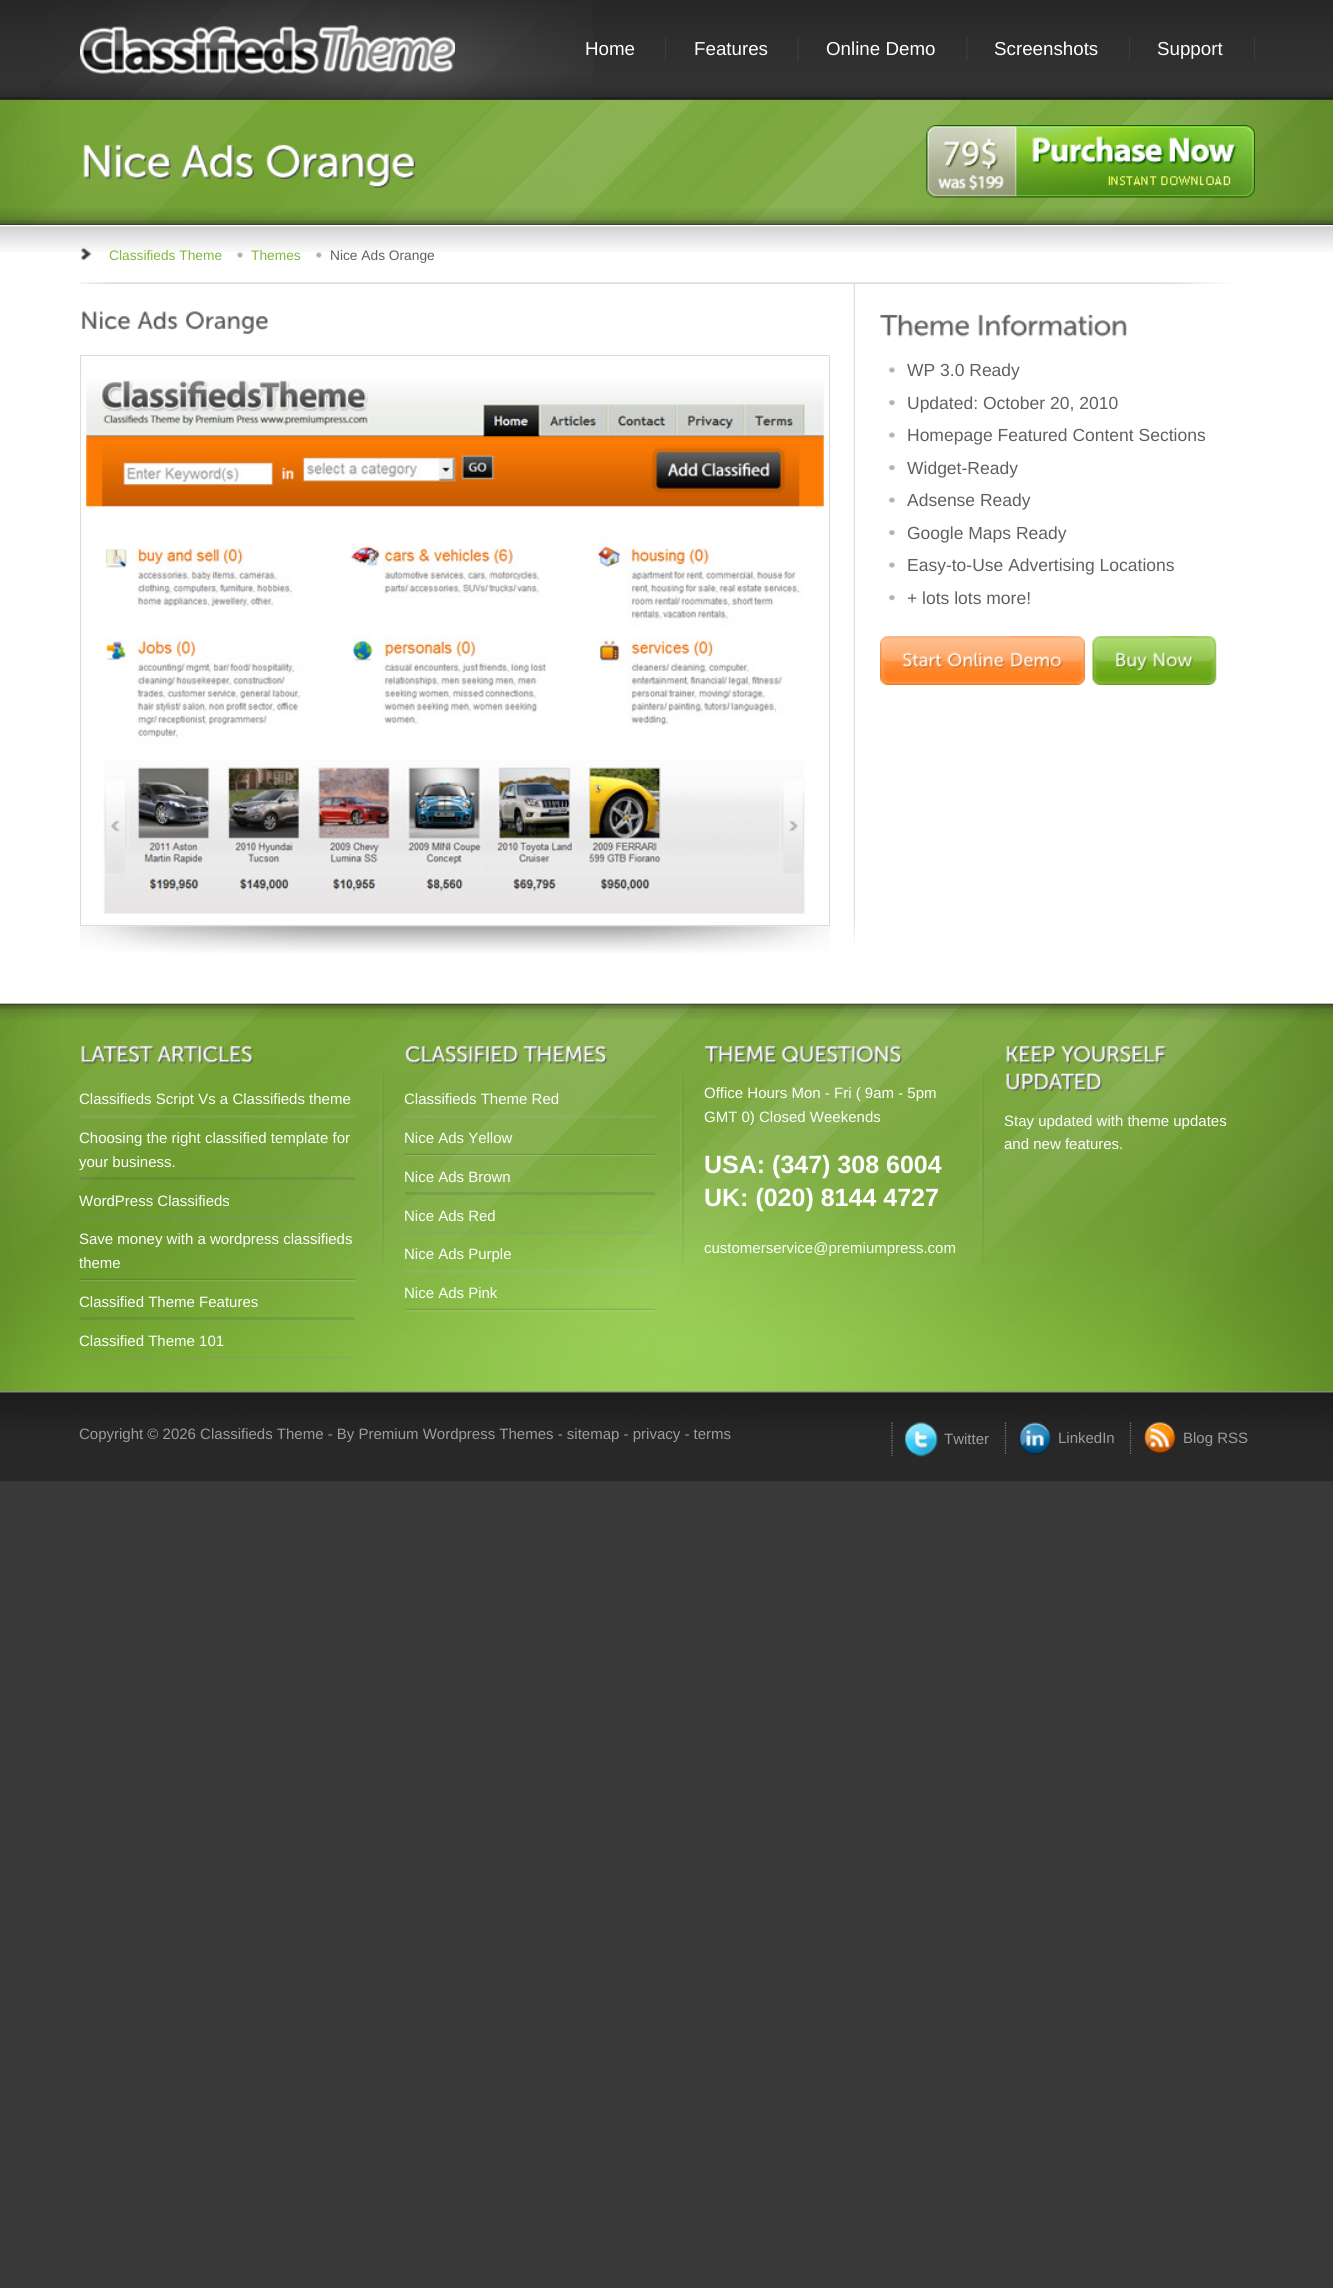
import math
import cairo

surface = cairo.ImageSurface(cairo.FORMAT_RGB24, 1333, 2288)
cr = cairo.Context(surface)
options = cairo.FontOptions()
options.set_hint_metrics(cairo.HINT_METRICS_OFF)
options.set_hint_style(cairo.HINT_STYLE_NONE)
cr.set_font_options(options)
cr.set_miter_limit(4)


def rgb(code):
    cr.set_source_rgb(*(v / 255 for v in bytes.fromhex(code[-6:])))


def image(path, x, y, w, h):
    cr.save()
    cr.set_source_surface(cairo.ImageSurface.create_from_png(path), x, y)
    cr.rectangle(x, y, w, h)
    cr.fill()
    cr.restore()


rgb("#393939")
cr.paint()
image("img/1.png", 0, 0, 1333, 100)
image("img/2.png", 40, 0, 553, 100)
image("img/3.png", 80, 25, 375, 49)
image("img/4.png", 665, 36, 1, 25)
image("img/5.png", 797, 36, 2, 25)
image("img/6.png", 966, 36, 2, 25)
image("img/4.png", 1129, 36, 1, 25)
image("img/4.png", 1254, 36, 1, 25)
image("img/7.png", 0, 100, 1333, 125)
image("img/8.png", 83, 144, 89, 35)
image("img/9.png", 181, 144, 73, 35)
image("img/10.png", 266, 144, 150, 44)
image("img/11.png", 926, 125, 329, 73)
image("img/12.png", 0, 208, 1333, 17)
rgb("#ffffff")
cr.rectangle(0, 225, 1333, 779)
cr.fill()
image("img/13.png", 0, 226, 1333, 26)
image("img/14.png", 80, 247, 12, 14)
image("img/15.png", 237, 252, 6, 6)
image("img/16.png", 316, 252, 6, 6)
image("img/17.png", 80, 282, 1151, 2)
image("img/18.png", 853, 284, 2, 663)
image("img/19.png", 81, 311, 50, 20)
image("img/20.png", 137, 311, 41, 19)
image("img/21.png", 186, 311, 82, 23)
cr.rectangle(80.5, 355.5, 749, 570)
rgb("#dbdbdb")
cr.set_line_width(1)
cr.stroke()
image("img/22.png", 86, 379, 738, 535)
image("img/23.png", 80, 926, 750, 27)
image("img/24.png", 879, 314, 91, 23)
image("img/25.png", 978, 314, 149, 23)
image("img/26.png", 888, 367, 7, 6)
image("img/27.png", 888, 400, 7, 6)
image("img/26.png", 888, 432, 7, 6)
image("img/27.png", 888, 465, 7, 6)
image("img/26.png", 888, 497, 7, 6)
image("img/27.png", 888, 530, 7, 6)
image("img/26.png", 888, 562, 7, 6)
image("img/27.png", 888, 595, 7, 6)
image("img/28.png", 1010, 636, 75, 49)
image("img/29.png", 880, 636, 183, 49)
image("img/30.png", 902, 652, 41, 17)
image("img/31.png", 947, 652, 58, 17)
image("img/32.png", 1011, 652, 52, 17)
image("img/33.png", 1170, 636, 47, 49)
image("img/34.png", 1092, 636, 102, 49)
image("img/35.png", 1116, 652, 32, 20)
image("img/36.png", 1153, 652, 41, 16)
image("img/54.png", 0, 1391, 1333, 91)
image("img/37.png", 0, 1003, 1333, 389)
image("img/38.png", 0, 1003, 1333, 17)
image("img/39.png", 81, 1046, 73, 18)
image("img/40.png", 157, 1046, 97, 18)
cr.set_source_rgba(0.698, 0.698, 0.698, 0.17)
cr.rectangle(80, 1115, 275, 3)
cr.fill()
cr.set_source_rgba(0.302, 0.302, 0.302, 0.17)
cr.rectangle(80, 1177, 275, 3)
cr.fill()
cr.set_source_rgba(0.533, 0.533, 0.533, 0.17)
cr.rectangle(80, 1216, 275, 3)
cr.fill()
image("img/41.png", 80, 1278, 275, 4)
cr.set_source_rgba(0.302, 0.302, 0.302, 0.17)
cr.rectangle(80, 1317, 275, 3)
cr.fill()
cr.set_source_rgba(0.533, 0.533, 0.533, 0.17)
cr.rectangle(80, 1356, 275, 3)
cr.fill()
image("img/42.png", 380, 1071, 4, 196)
image("img/43.png", 405, 1046, 114, 18)
image("img/44.png", 523, 1046, 85, 18)
cr.set_source_rgba(0.698, 0.698, 0.698, 0.17)
cr.rectangle(405, 1115, 250, 3)
cr.fill()
image("img/45.png", 405, 1153, 250, 4)
cr.set_source_rgba(0.302, 0.302, 0.302, 0.17)
cr.rectangle(405, 1192, 250, 3)
cr.fill()
cr.set_source_rgba(0.533, 0.533, 0.533, 0.17)
cr.rectangle(405, 1231, 250, 3)
cr.fill()
cr.set_source_rgba(0.698, 0.698, 0.698, 0.17)
cr.rectangle(405, 1270, 250, 3)
cr.fill()
image("img/46.png", 405, 1308, 250, 4)
image("img/47.png", 680, 1071, 4, 196)
image("img/48.png", 704, 1046, 74, 18)
image("img/49.png", 781, 1046, 122, 18)
image("img/50.png", 980, 1071, 4, 196)
image("img/51.png", 1006, 1046, 51, 18)
image("img/52.png", 1061, 1046, 106, 18)
image("img/53.png", 1006, 1073, 97, 19)
cr.new_path()
cr.move_to(892, 1422.5)
cr.line_to(892, 1456)
rgb("#7a7a7a")
cr.set_line_width(1.2)
cr.set_dash([1.25, 1.25])
cr.stroke()
image("img/55.png", 905, 1422, 33, 35)
cr.new_path()
cr.move_to(1005.5, 1422.5)
cr.line_to(1005.5, 1455)
cr.stroke()
image("img/56.png", 1018, 1422, 34, 33)
cr.new_path()
cr.move_to(1130.5, 1422.5)
cr.line_to(1130.5, 1454)
cr.stroke()
image("img/57.png", 1143, 1422, 33, 32)
cr.select_font_face("Liberation Sans")
cr.set_font_size(18.75)
rgb("#ffffff")
for x, y, s in [
    (585, 55, "Home"),
    (694, 55, "Features"),
    (826, 55, "Online Demo"),
    (994, 55, "Screenshots"),
    (1157, 55, "Support"),
]:
    cr.move_to(x, y)
    cr.show_text(s)
cr.set_font_size(13.75)
rgb("#83b640")
cr.move_to(109, 260)
cr.show_text("Classifieds Theme")
cr.move_to(251, 260)
cr.show_text("Themes")
rgb("#606060")
cr.move_to(330, 260)
cr.show_text("Nice Ads Orange")
cr.set_font_size(17.5)
for x, y, s in [
    (907, 376, "WP 3.0 Ready"),
    (907, 409, "Updated: October 20, 2010"),
    (907, 441, "Homepage Featured Content Sections"),
    (907, 474, "Widget-Ready"),
    (907, 506, "Adsense Ready"),
    (907, 539, "Google Maps Ready"),
    (907, 571, "Easy-to-Use Advertising Locations"),
    (907, 604, "+ lots lots more!"),
]:
    cr.move_to(x, y)
    cr.show_text(s)
cr.set_font_size(15)
rgb("#ffffff")
for x, y, s in [
    (79, 1104, "Classifieds Script Vs a Classifieds theme"),
    (79, 1143, "Choosing the right classified template for"),
    (79, 1167, "your business."),
    (79, 1206, "WordPress Classifieds"),
    (79, 1244, "Save money with a wordpress classifieds"),
    (79, 1268, "theme"),
    (79, 1307, "Classified Theme Features"),
    (79, 1346, "Classified Theme 101"),
    (404, 1104, "Classifieds Theme Red"),
    (404, 1143, "Nice Ads Yellow"),
    (404, 1182, "Nice Ads Brown"),
    (404, 1221, "Nice Ads Red"),
    (404, 1259, "Nice Ads Purple"),
    (404, 1298, "Nice Ads Pink"),
    (704, 1098, "Office Hours Mon - Fri ( 9am - 5pm"),
    (704, 1122, "GMT 0) Closed Weekends"),
]:
    cr.move_to(x, y)
    cr.show_text(s)
cr.select_font_face("Liberation Sans", cairo.FONT_SLANT_NORMAL, cairo.FONT_WEIGHT_BOLD)
cr.set_font_size(25)
cr.move_to(704, 1173)
cr.show_text("USA: (347) 308 6004")
cr.move_to(704, 1206)
cr.show_text("UK: (020) 8144 4727")
cr.select_font_face("Liberation Sans")
cr.set_font_size(15)
for x, y, s in [
    (704, 1253, "customerservice@premiumpress.com"),
    (1004, 1126, "Stay updated with theme updates"),
    (1004, 1149, "and new features."),
]:
    cr.move_to(x, y)
    cr.show_text(s)
rgb("#9c9c9c")
for x, y, s in [
    (79, 1439, "Copyright © 2026 Classifieds Theme - By Premium Wordpress Themes - sitemap - privacy - terms"),
    (944, 1444, "Twitter"),
    (1058, 1443, "LinkedIn"),
    (1183, 1443, "Blog RSS"),
]:
    cr.move_to(x, y)
    cr.show_text(s)
surface.write_to_png("page.png")
